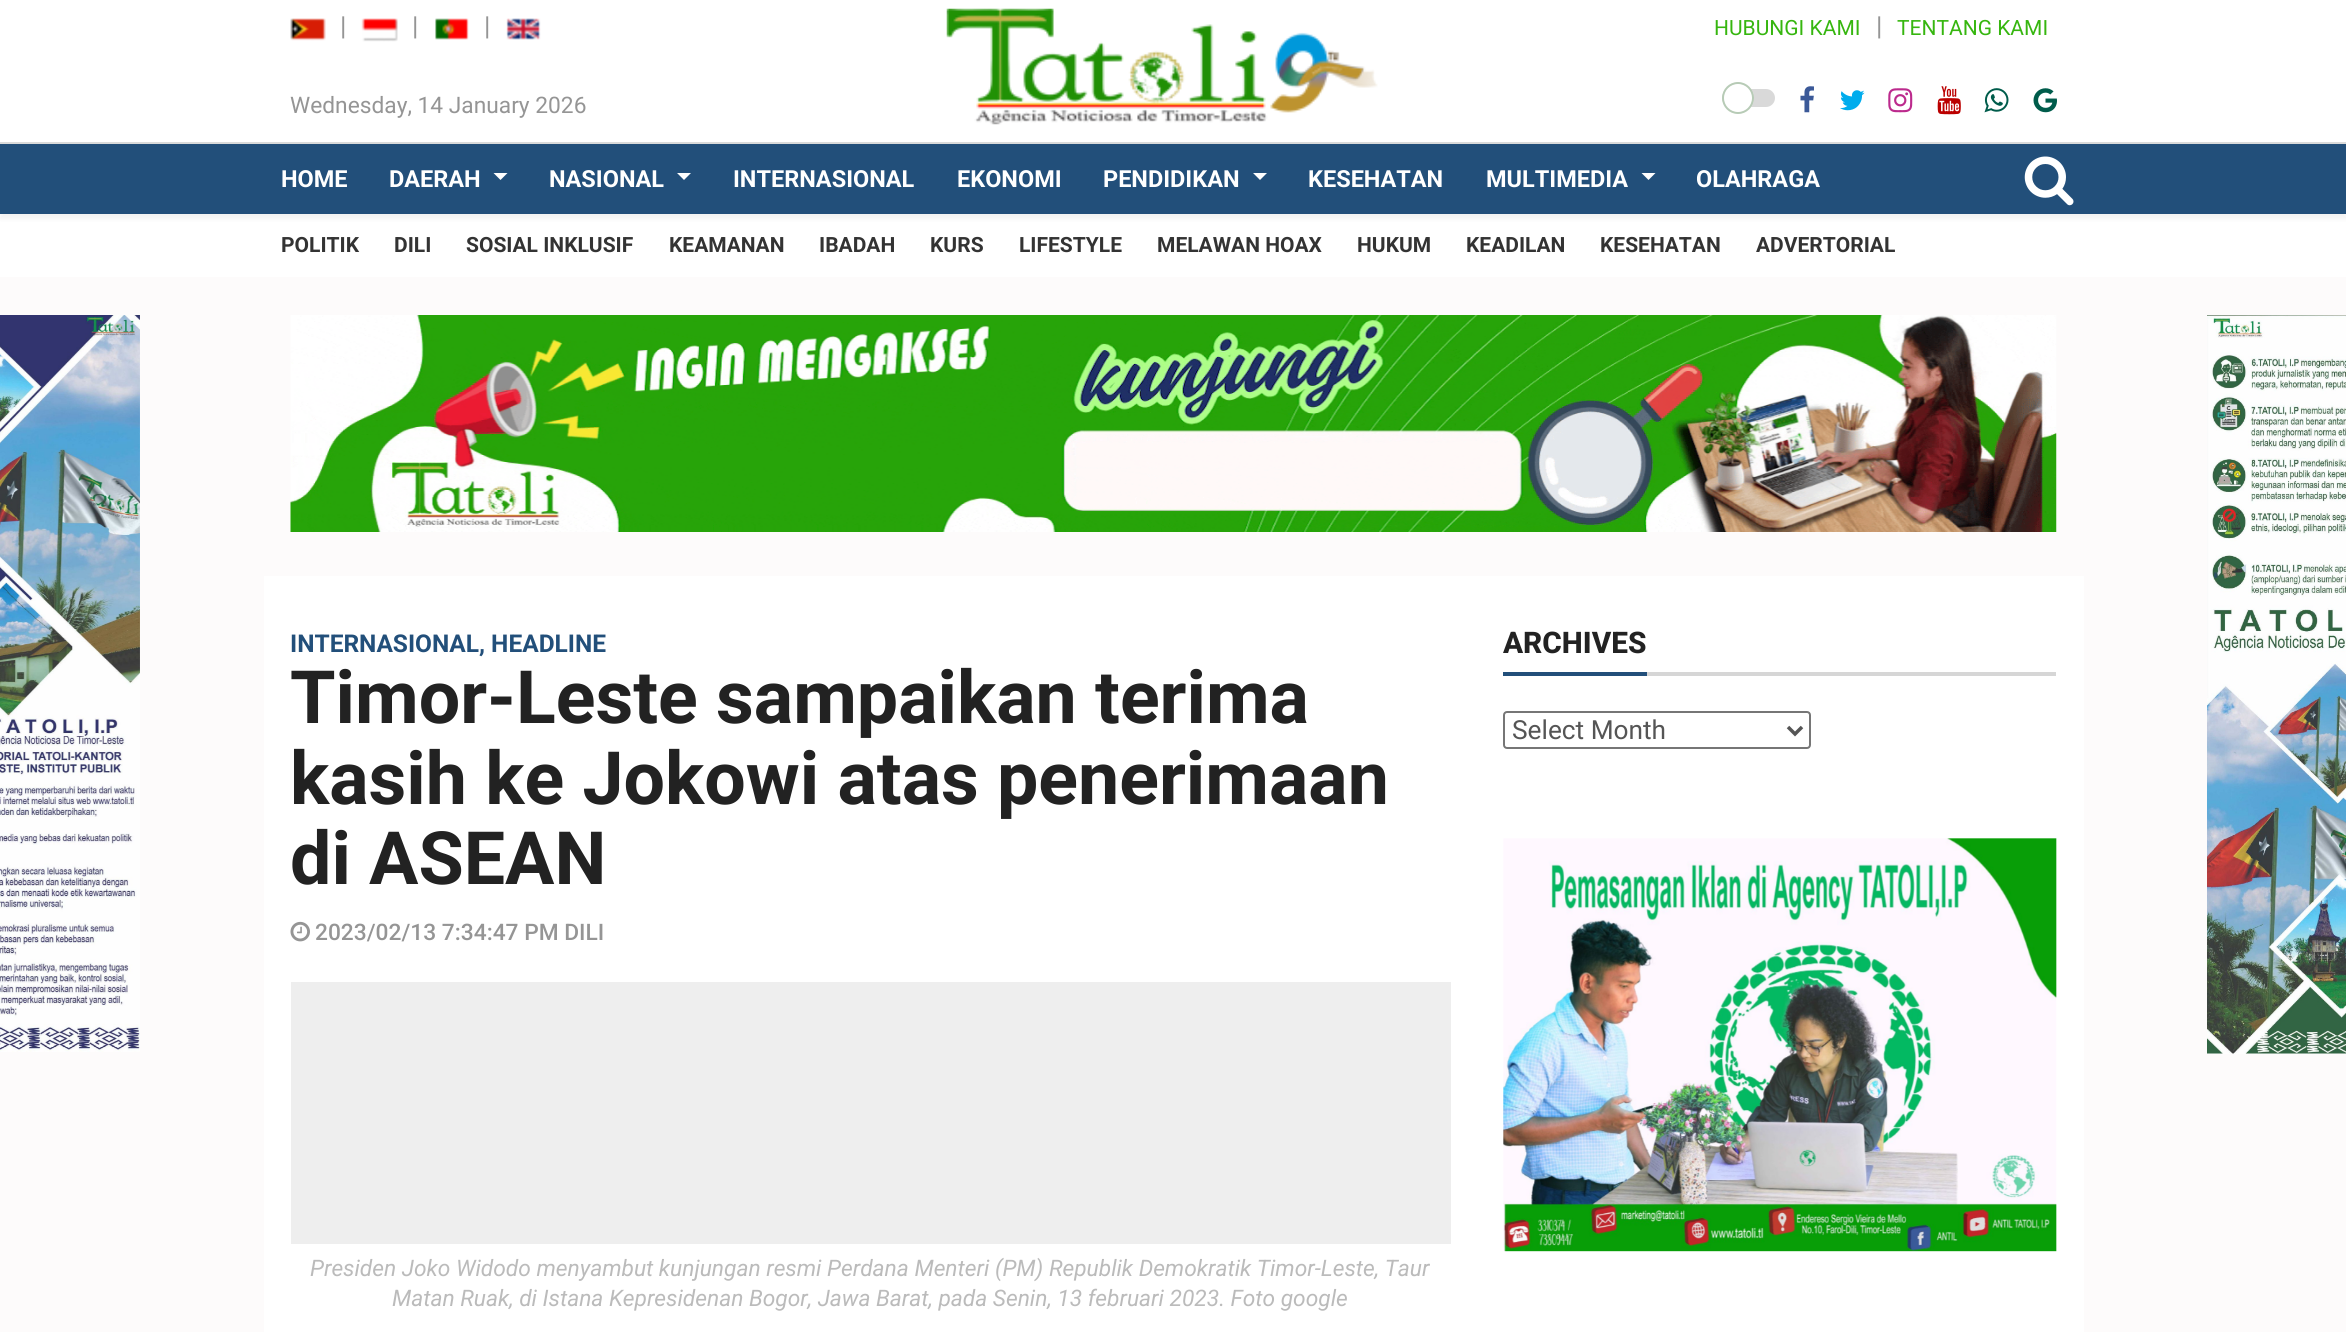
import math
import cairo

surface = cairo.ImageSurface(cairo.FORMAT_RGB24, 2346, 1332)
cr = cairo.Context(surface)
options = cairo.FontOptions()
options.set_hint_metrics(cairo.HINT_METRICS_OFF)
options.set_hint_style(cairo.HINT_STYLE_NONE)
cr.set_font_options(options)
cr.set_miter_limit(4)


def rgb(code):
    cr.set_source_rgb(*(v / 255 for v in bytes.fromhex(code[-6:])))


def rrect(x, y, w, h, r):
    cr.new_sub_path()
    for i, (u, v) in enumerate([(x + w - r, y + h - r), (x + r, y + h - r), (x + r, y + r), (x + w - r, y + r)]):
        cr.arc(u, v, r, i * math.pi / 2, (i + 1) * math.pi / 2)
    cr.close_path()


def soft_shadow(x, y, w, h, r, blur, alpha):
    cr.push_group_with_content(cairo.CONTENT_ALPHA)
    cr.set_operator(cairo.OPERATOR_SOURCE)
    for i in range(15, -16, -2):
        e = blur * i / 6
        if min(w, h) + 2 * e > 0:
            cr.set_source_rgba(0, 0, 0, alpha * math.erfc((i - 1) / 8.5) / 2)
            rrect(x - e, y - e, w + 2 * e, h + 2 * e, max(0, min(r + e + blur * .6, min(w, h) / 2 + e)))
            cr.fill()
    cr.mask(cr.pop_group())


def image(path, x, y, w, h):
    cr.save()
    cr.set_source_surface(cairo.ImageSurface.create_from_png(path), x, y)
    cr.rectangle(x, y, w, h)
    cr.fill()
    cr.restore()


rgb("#fdfbfb")
cr.paint()
rgb("#ffffff")
cr.rectangle(0, 0, 2346, 142)
cr.fill()
rgb("#dadada")
cr.rectangle(0, 142, 2346, 2)
cr.fill()
image("img/1.png", 290, 18, 36, 23)
image("img/2.png", 361, 18, 37, 24)
image("img/3.png", 435, 18, 34, 22)
image("img/4.png", 506, 18, 35, 22)
image("img/5.png", 946, 8, 432, 117)
rgb("#d9d9d9")
rrect(1722, 89, 53, 18, 9)
cr.fill()
rgb("#ffffff")
cr.arc(1738, 98, 16, 0, 2 * math.pi)
cr.fill()
cr.arc(1738, 98, 15, 0, 2 * math.pi)
cr.set_source_rgba(0.173, 0.412, 0.169, 0.34)
cr.stroke()
image("img/6.png", 1800, 86, 14, 27)
image("img/7.png", 1840, 90, 25, 21)
image("img/8.png", 1888, 88, 25, 25)
image("img/9.png", 1937, 86, 24, 29)
image("img/10.png", 1984, 88, 25, 25)
image("img/11.png", 2033, 88, 24, 25)
rgb("#ffffff")
cr.rectangle(0, 214, 2346, 63)
cr.fill()
rgb("#000000")
soft_shadow(0, 149, 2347, 70, 0, 2, 0.05)
rgb("#224f7a")
cr.rectangle(0, 144, 2346, 70)
cr.fill()
rgb("#ffffff")
cr.new_path()
cr.move_to(493.5, 173)
cr.line_to(507.5, 173)
cr.line_to(500.5, 180)
cr.close_path()
cr.fill()
cr.new_path()
cr.move_to(677, 173)
cr.line_to(691, 173)
cr.line_to(684, 180)
cr.close_path()
cr.fill()
cr.new_path()
cr.move_to(1253, 173)
cr.line_to(1267, 173)
cr.line_to(1260, 180)
cr.close_path()
cr.fill()
cr.new_path()
cr.move_to(1641.5, 173)
cr.line_to(1655.5, 173)
cr.line_to(1648.5, 180)
cr.close_path()
cr.fill()
image("img/12.png", 2024, 156, 50, 50)
image("img/13.png", 0, 315, 140, 737)
image("img/14.png", 290, 315, 1767, 217)
cr.rectangle(2207, 1053, 139, 1)
cr.fill()
image("img/15.png", 2207, 315, 139, 739)
cr.rectangle(264, 576, 1820, 756)
cr.fill()
image("img/16.png", 290, 921, 20, 21)
for x, y, w, h, color in [
    (291, 982, 1160, 262, "#eeeeee"),
    (1647, 672, 409, 4, "#d6d6d6"),
    (1503, 672, 144, 4, "#224f7a"),
]:
    rgb(color)
    cr.rectangle(x, y, w, h)
    cr.fill()
rrect(1504, 712, 306, 36, 3)
rgb("#767676")
cr.stroke()
cr.new_path()
cr.move_to(1788, 727)
cr.line_to(1795, 734)
cr.line_to(1802, 727)
rgb("#555555")
cr.set_line_width(3.5)
cr.stroke()
image("img/17.png", 1503, 838, 554, 414)
cr.select_font_face("Roboto")
cr.set_font_size(26.25)
rgb("#959595")
for x, y, s in [
    (340, 35, "|"),
    (412, 35, "|"),
    (484, 35, "|"),
]:
    cr.move_to(x, y)
    cr.show_text(s)
cr.set_font_size(22.75)
cr.move_to(290, 113)
cr.show_text("Wednesday, 14 January 2026")
cr.set_font_size(21)
rgb("#36b60f")
cr.move_to(1714, 35)
cr.show_text("HUBUNGI KAMI")
cr.set_font_size(26.25)
rgb("#959595")
cr.move_to(1876, 35)
cr.show_text("|")
cr.set_font_size(21)
rgb("#36b60f")
cr.move_to(1897, 35)
cr.show_text("TENTANG KAMI")
cr.select_font_face("Roboto", cairo.FONT_SLANT_NORMAL, cairo.FONT_WEIGHT_BOLD)
cr.set_font_size(23.5)
rgb("#ffffff")
for x, y, s in [
    (281, 187, "HOME"),
    (389, 187, "DAERAH"),
    (549, 187, "NASIONAL"),
    (733, 187, "INTERNASIONAL"),
    (957, 187, "EKONOMI"),
    (1103, 187, "PENDIDIKAN"),
    (1308, 187, "KESEHATAN"),
    (1486, 187, "MULTIMEDIA"),
    (1696, 187, "OLAHRAGA"),
]:
    cr.move_to(x, y)
    cr.show_text(s)
cr.set_font_size(21)
rgb("#333333")
for x, y, s in [
    (281, 252, "POLITIK"),
    (394, 252, "DILI"),
    (466, 252, "SOSIAL INKLUSIF"),
    (669, 252, "KEAMANAN"),
    (819, 252, "IBADAH"),
    (930, 252, "KURS"),
    (1019, 252, "LIFESTYLE"),
    (1157, 252, "MELAWAN HOAX"),
    (1357, 252, "HUKUM"),
    (1466, 252, "KEADILAN"),
    (1600, 252, "KESEHATAN"),
    (1756, 252, "ADVERTORIAL"),
]:
    cr.move_to(x, y)
    cr.show_text(s)
cr.set_font_size(24.5)
rgb("#224f7a")
cr.move_to(290, 652)
cr.show_text("INTERNASIONAL, HEADLINE")
cr.set_font_size(73.5)
rgb("#222222")
for x, y, s in [
    (290, 723, "Timor-Leste sampaikan terima"),
    (290, 804, "kasih ke Jokowi atas penerimaan"),
    (290, 884, "di ASEAN"),
]:
    cr.move_to(x, y)
    cr.show_text(s)
cr.select_font_face("Roboto Medium")
cr.set_font_size(22.75)
rgb("#959595")
cr.move_to(315, 940)
cr.show_text("2023/02/13 7:34:47 PM DILI")
cr.select_font_face("Roboto", cairo.FONT_SLANT_ITALIC)
rgb("#bbbbbb")
cr.move_to(310, 1276)
cr.show_text("Presiden Joko Widodo menyambut kunjungan resmi Perdana Menteri (PM) Republik Demokratik Timor-Leste, Taur")
cr.move_to(392, 1306)
cr.show_text("Matan Ruak, di Istana Kepresidenan Bogor, Jawa Barat, pada Senin, 13 februari 2023. Foto google")
cr.select_font_face("Roboto ExtraBold")
cr.set_font_size(29.75)
rgb("#222222")
cr.move_to(1503, 653)
cr.show_text("ARCHIVES")
cr.select_font_face("Roboto")
cr.set_font_size(26.25)
rgb("#555555")
cr.move_to(1512, 739)
cr.show_text("Select Month")
surface.write_to_png("page.png")
